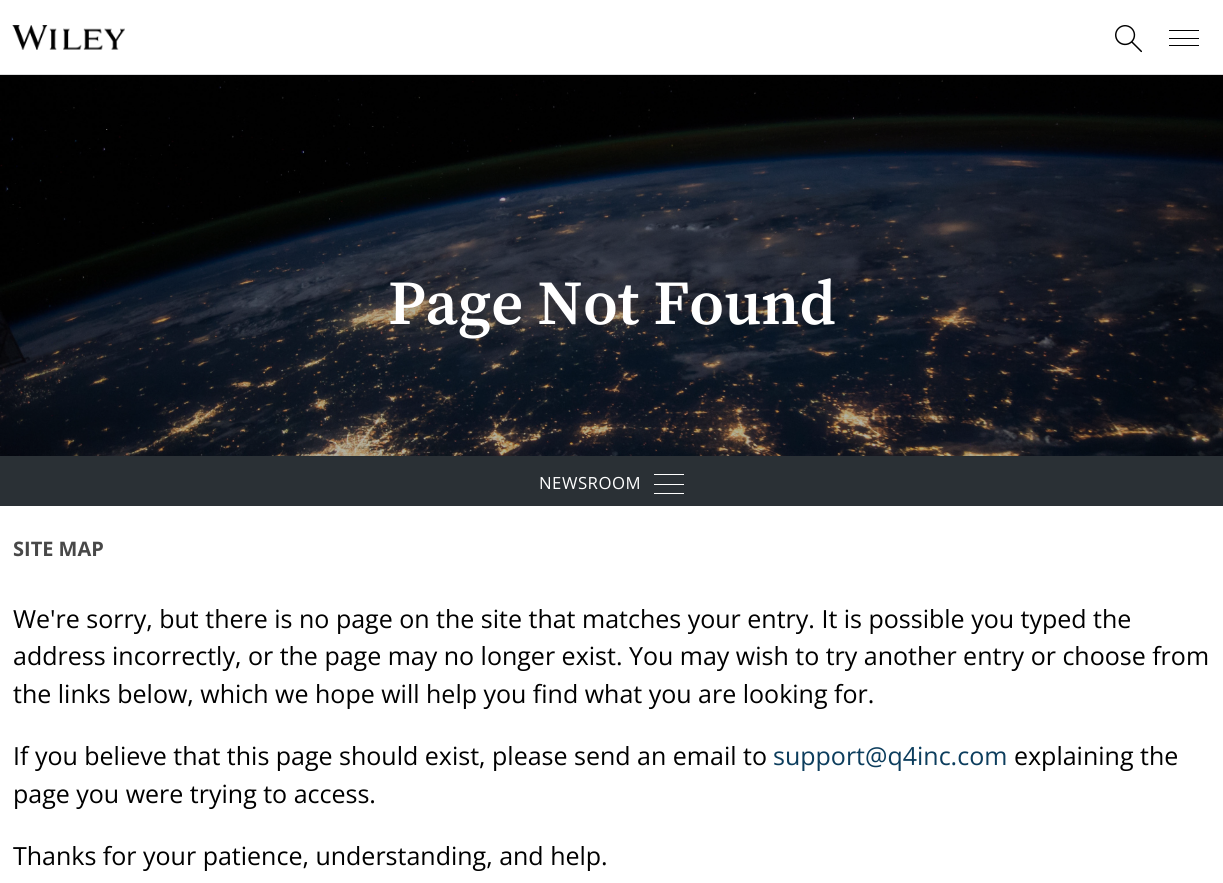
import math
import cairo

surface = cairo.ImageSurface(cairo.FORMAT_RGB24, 1223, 883)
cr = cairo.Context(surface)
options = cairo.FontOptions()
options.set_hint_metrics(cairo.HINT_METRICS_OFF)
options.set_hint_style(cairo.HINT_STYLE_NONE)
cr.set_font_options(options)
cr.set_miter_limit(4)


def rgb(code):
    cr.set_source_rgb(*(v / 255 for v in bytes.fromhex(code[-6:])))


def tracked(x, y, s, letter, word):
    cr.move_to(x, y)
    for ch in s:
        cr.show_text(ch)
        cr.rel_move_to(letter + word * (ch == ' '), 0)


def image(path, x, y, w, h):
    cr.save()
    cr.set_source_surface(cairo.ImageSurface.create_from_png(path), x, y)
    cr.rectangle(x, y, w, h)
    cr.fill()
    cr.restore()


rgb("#ffffff")
cr.paint()
rgb("#dddedf")
cr.rectangle(0, 74, 1223, 1)
cr.fill()
image("img/1.png", 12, 25, 113, 25)
image("img/2.png", 1115, 25, 27, 28)
for x, y, w, h, color in [
    (1169, 30, 30, 1, "#000000"),
    (1169, 38, 30, 1, "#000000"),
    (1169, 45, 30, 1, "#000000"),
]:
    rgb(color)
    cr.rectangle(x, y, w, h)
    cr.fill()
image("img/3.png", 0, 75, 1223, 381)
for x, y, w, h, color in [
    (0, 456, 1223, 50, "#2a3035"),
    (654, 474, 30, 1, "#ffffff"),
    (654, 484, 30, 1, "#ffffff"),
    (654, 493, 30, 1, "#ffffff"),
]:
    rgb(color)
    cr.rectangle(x, y, w, h)
    cr.fill()
cr.select_font_face("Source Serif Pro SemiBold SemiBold")
cr.set_font_size(62.5)
cr.move_to(388, 324)
cr.show_text("Page Not Found")
cr.select_font_face("Open Sans")
cr.set_font_size(16.75)
tracked(539, 489, "NEWSROOM", 0.5, 0)
cr.select_font_face("Open Sans", cairo.FONT_SLANT_NORMAL, cairo.FONT_WEIGHT_BOLD)
cr.set_font_size(20)
rgb("#484848")
cr.move_to(13, 556)
cr.show_text("SITE MAP")
cr.select_font_face("Open Sans")
cr.set_font_size(25)
rgb("#000000")
for x, y, s in [
    (13, 628, "We're sorry, but there is no page on the site that matches your entry. It is possible you typed the"),
    (13, 665, "address incorrectly, or the page may no longer exist. You may wish to try another entry or choose from"),
    (13, 703, "the links below, which we hope will help you find what you are looking for."),
    (13, 765, "If you believe that this page should exist, please send an email to"),
]:
    cr.move_to(x, y)
    cr.show_text(s)
rgb("#0c3d5d")
cr.move_to(773, 765)
cr.show_text("support@q4inc.com")
rgb("#000000")
for x, y, s in [
    (1014, 765, "explaining the"),
    (13, 803, "page you were trying to access."),
    (13, 865, "Thanks for your patience, understanding, and help."),
]:
    cr.move_to(x, y)
    cr.show_text(s)
surface.write_to_png("page.png")
